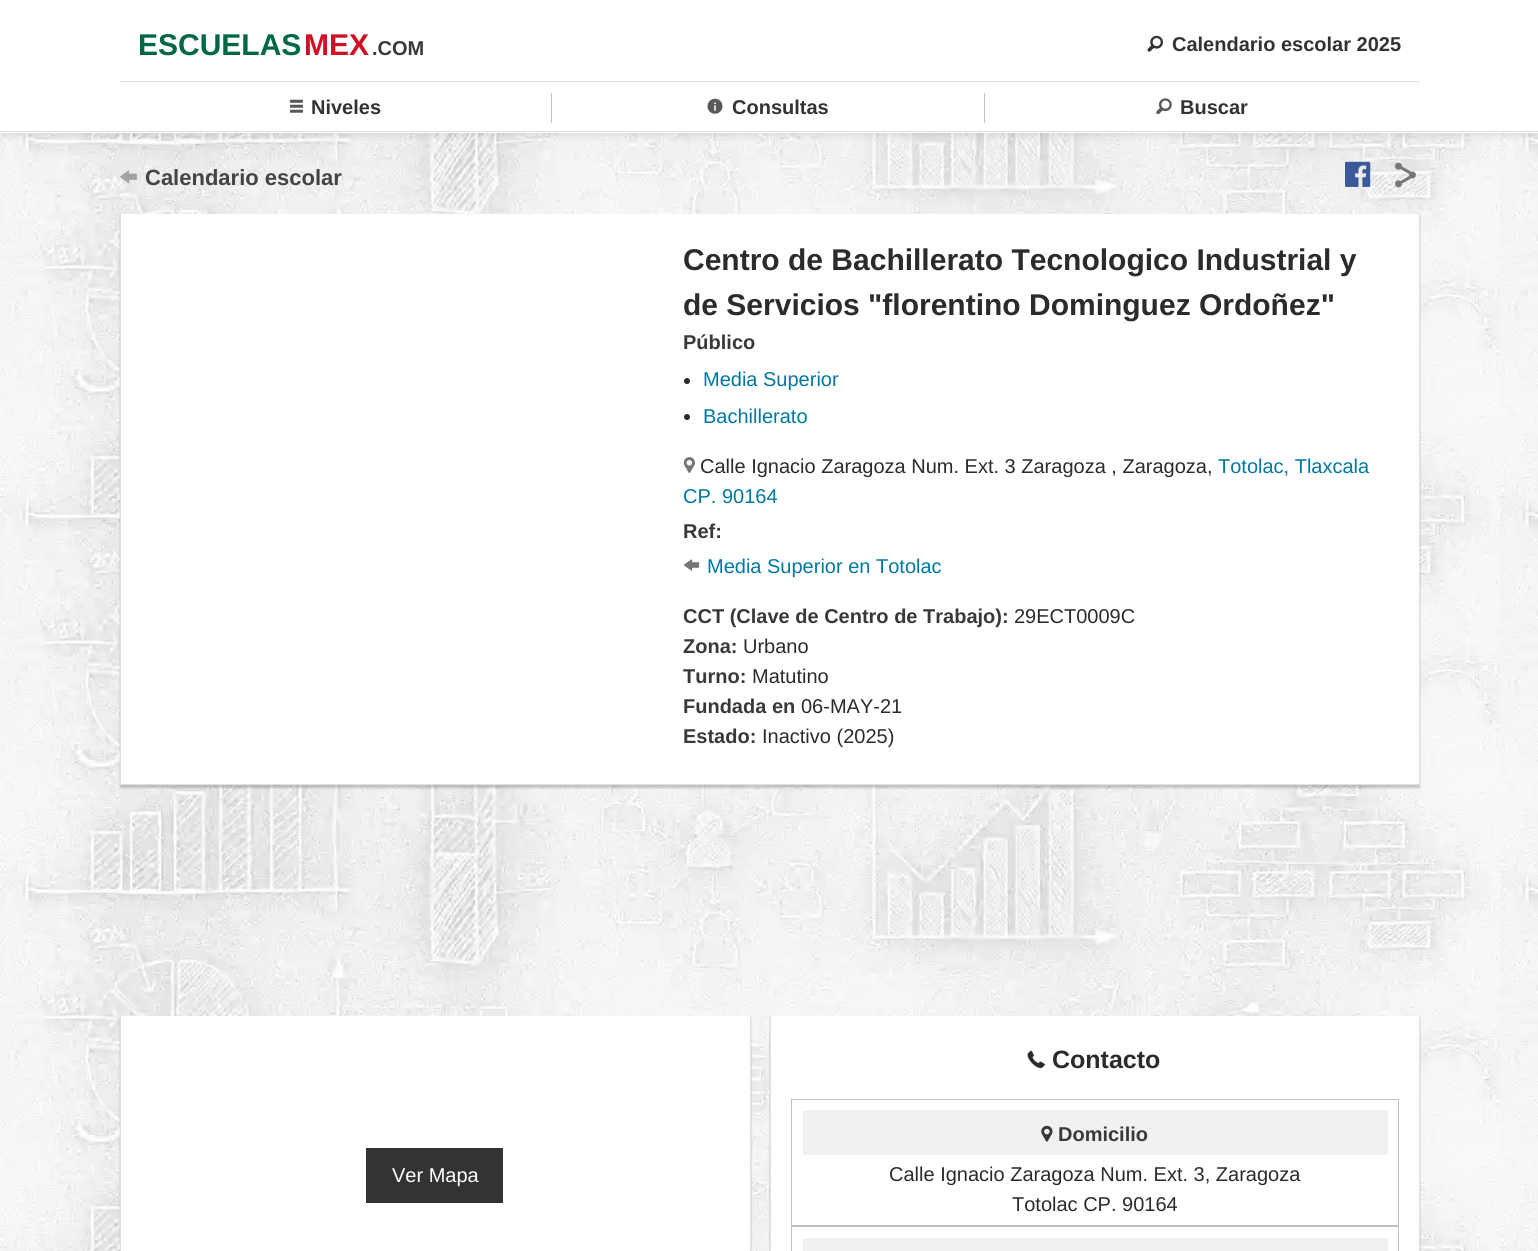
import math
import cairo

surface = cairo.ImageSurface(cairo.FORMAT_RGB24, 1538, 1251)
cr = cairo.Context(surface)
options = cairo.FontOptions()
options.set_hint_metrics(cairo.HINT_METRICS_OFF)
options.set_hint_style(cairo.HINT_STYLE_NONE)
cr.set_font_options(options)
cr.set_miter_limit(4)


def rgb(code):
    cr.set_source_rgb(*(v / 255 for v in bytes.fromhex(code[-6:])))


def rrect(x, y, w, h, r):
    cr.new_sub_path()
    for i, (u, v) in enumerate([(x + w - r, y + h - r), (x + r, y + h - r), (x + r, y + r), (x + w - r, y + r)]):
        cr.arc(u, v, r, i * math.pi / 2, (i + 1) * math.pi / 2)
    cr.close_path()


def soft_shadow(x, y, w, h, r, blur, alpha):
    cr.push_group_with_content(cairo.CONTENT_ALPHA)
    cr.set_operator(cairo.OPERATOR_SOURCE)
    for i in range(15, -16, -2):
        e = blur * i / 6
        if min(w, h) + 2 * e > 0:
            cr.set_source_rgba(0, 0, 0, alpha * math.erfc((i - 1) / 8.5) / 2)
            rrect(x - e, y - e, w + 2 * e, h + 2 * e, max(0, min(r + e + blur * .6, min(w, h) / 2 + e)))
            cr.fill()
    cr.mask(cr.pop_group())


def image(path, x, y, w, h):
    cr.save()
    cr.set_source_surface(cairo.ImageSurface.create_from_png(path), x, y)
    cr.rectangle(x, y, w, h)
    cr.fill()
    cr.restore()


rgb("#ffffff")
cr.paint()
image("img/1.png", 0, 133, 1538, 1118)
rgb("#000000")
soft_shadow(0, 3, 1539, 132, 0, 4, 0.12)
rgb("#ffffff")
cr.rectangle(0, 0, 1538, 133)
cr.fill()
rgb("#dadce0")
cr.rectangle(0, 131, 1538, 1)
cr.fill()
image("img/2.png", 1147, 35, 16, 17)
rgb("#e1e1e1")
cr.rectangle(120, 81, 1300, 1)
cr.fill()
rgb("#c1c1c1")
cr.rectangle(551, 93, 1, 30)
cr.fill()
image("img/3.png", 290, 99, 13, 14)
cr.rectangle(984, 93, 1, 30)
cr.fill()
image("img/4.png", 707, 98, 16, 16)
image("img/5.png", 1156, 98, 16, 17)
image("img/6.png", 120, 170, 17, 13)
image("img/7.png", 1345, 161, 26, 26)
image("img/8.png", 1395, 162, 21, 26)
rgb("#000000")
soft_shadow(120, 216, 1300, 572, 0, 1, 0.2)
for x, y, w, h, color in [
    (121, 214, 1298, 570, "#ffffff"),
    (1419, 214, 1, 571, "#e1e1e1"),
    (120, 784, 1300, 1, "#e1e1e1"),
    (120, 214, 1, 571, "#e1e1e1"),
]:
    rgb(color)
    cr.rectangle(x, y, w, h)
    cr.fill()
rgb("#2b2b2b")
cr.arc(687, 381, 3, 0, 2 * math.pi)
cr.fill()
cr.arc(687, 417, 3, 0, 2 * math.pi)
cr.fill()
image("img/9.png", 683, 457, 12, 16)
image("img/10.png", 683, 559, 17, 12)
rgb("#000000")
soft_shadow(120, 1019, 631, 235, 0, 1, 0.2)
for x, y, w, h, color in [
    (121, 1016, 629, 235, "#ffffff"),
    (750, 1016, 1, 235, "#e1e1e1"),
    (120, 1016, 1, 235, "#e1e1e1"),
    (366, 1148, 137, 55, "#333333"),
]:
    rgb(color)
    cr.rectangle(x, y, w, h)
    cr.fill()
rgb("#000000")
soft_shadow(770, 1019, 650, 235, 0, 1, 0.2)
for x, y, w, h, color in [
    (771, 1016, 648, 235, "#ffffff"),
    (1419, 1016, 1, 235, "#e1e1e1"),
    (770, 1016, 1, 235, "#e1e1e1"),
]:
    rgb(color)
    cr.rectangle(x, y, w, h)
    cr.fill()
image("img/11.png", 1027, 1050, 18, 19)
cr.rectangle(791.5, 1099.5, 607, 126)
rgb("#c1c1c1")
cr.set_line_width(1)
cr.stroke()
rgb("#f1f1f1")
cr.rectangle(803, 1110, 585, 45)
cr.fill()
image("img/12.png", 1041, 1125, 12, 17)
cr.rectangle(791.5, 1226.5, 607, 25)
rgb("#c1c1c1")
cr.stroke()
rgb("#f1f1f1")
cr.rectangle(803, 1238, 585, 13)
cr.fill()
cr.select_font_face("Liberation Sans", cairo.FONT_SLANT_NORMAL, cairo.FONT_WEIGHT_BOLD)
cr.set_font_size(30)
rgb("#006847")
cr.move_to(138, 55)
cr.show_text("ESCUELAS")
rgb("#ce1126")
cr.move_to(304, 55)
cr.show_text("MEX")
cr.set_font_size(20)
rgb("#393939")
cr.move_to(372, 55)
cr.show_text(".COM")
rgb("#333333")
for x, y, s in [
    (1172, 51, "Calendario escolar 2025"),
    (311, 114, "Niveles"),
    (732, 114, "Consultas"),
    (1180, 114, "Buscar"),
]:
    cr.move_to(x, y)
    cr.show_text(s)
cr.set_font_size(22)
rgb("#444444")
cr.move_to(145, 185)
cr.show_text("Calendario escolar")
cr.set_font_size(30)
rgb("#2b2b2b")
cr.move_to(683, 270)
cr.show_text("Centro de Bachillerato Tecnologico Industrial y")
cr.move_to(683, 315)
cr.show_text("de Servicios \"florentino Dominguez Ordoñez\"")
cr.set_font_size(20)
rgb("#393939")
cr.move_to(683, 349)
cr.show_text("Público")
cr.select_font_face("Liberation Sans")
rgb("#0078a1")
cr.move_to(703, 386)
cr.show_text("Media Superior")
cr.move_to(703, 423)
cr.show_text("Bachillerato")
rgb("#2b2b2b")
cr.move_to(700, 473)
cr.show_text("Calle Ignacio Zaragoza Num. Ext. 3 Zaragoza , Zaragoza,")
rgb("#0078a1")
cr.move_to(1218, 473)
cr.show_text("Totolac, Tlaxcala")
cr.move_to(683, 503)
cr.show_text("CP. 90164")
cr.select_font_face("Liberation Sans", cairo.FONT_SLANT_NORMAL, cairo.FONT_WEIGHT_BOLD)
rgb("#393939")
cr.move_to(683, 538)
cr.show_text("Ref:")
cr.select_font_face("Liberation Sans")
rgb("#0078a1")
cr.move_to(707, 573)
cr.show_text("Media Superior en Totolac")
cr.select_font_face("Liberation Sans", cairo.FONT_SLANT_NORMAL, cairo.FONT_WEIGHT_BOLD)
rgb("#393939")
cr.move_to(683, 623)
cr.show_text("CCT (Clave de Centro de Trabajo):")
cr.select_font_face("Liberation Sans")
rgb("#2b2b2b")
cr.move_to(1014, 623)
cr.show_text("29ECT0009C")
cr.select_font_face("Liberation Sans", cairo.FONT_SLANT_NORMAL, cairo.FONT_WEIGHT_BOLD)
rgb("#393939")
cr.move_to(683, 653)
cr.show_text("Zona:")
cr.select_font_face("Liberation Sans")
rgb("#2b2b2b")
cr.move_to(743, 653)
cr.show_text("Urbano")
cr.select_font_face("Liberation Sans", cairo.FONT_SLANT_NORMAL, cairo.FONT_WEIGHT_BOLD)
rgb("#393939")
cr.move_to(683, 683)
cr.show_text("Turno:")
cr.select_font_face("Liberation Sans")
rgb("#2b2b2b")
cr.move_to(752, 683)
cr.show_text("Matutino")
cr.select_font_face("Liberation Sans", cairo.FONT_SLANT_NORMAL, cairo.FONT_WEIGHT_BOLD)
rgb("#393939")
cr.move_to(683, 713)
cr.show_text("Fundada en")
cr.select_font_face("Liberation Sans")
rgb("#2b2b2b")
cr.move_to(801, 713)
cr.show_text("06-MAY-21")
cr.select_font_face("Liberation Sans", cairo.FONT_SLANT_NORMAL, cairo.FONT_WEIGHT_BOLD)
rgb("#393939")
cr.move_to(683, 743)
cr.show_text("Estado:")
cr.select_font_face("Liberation Sans")
rgb("#2b2b2b")
cr.move_to(762, 743)
cr.show_text("Inactivo (2025)")
rgb("#ffffff")
cr.move_to(392, 1182)
cr.show_text("Ver Mapa")
cr.select_font_face("Liberation Sans", cairo.FONT_SLANT_NORMAL, cairo.FONT_WEIGHT_BOLD)
cr.set_font_size(25)
rgb("#2b2b2b")
cr.move_to(1052, 1068)
cr.show_text("Contacto")
cr.set_font_size(20)
rgb("#393939")
cr.move_to(1058, 1141)
cr.show_text("Domicilio")
cr.select_font_face("Liberation Sans")
rgb("#2b2b2b")
cr.move_to(889, 1181)
cr.show_text("Calle Ignacio Zaragoza Num. Ext. 3, Zaragoza")
cr.move_to(1012, 1211)
cr.show_text("Totolac CP. 90164")
surface.write_to_png("page.png")
